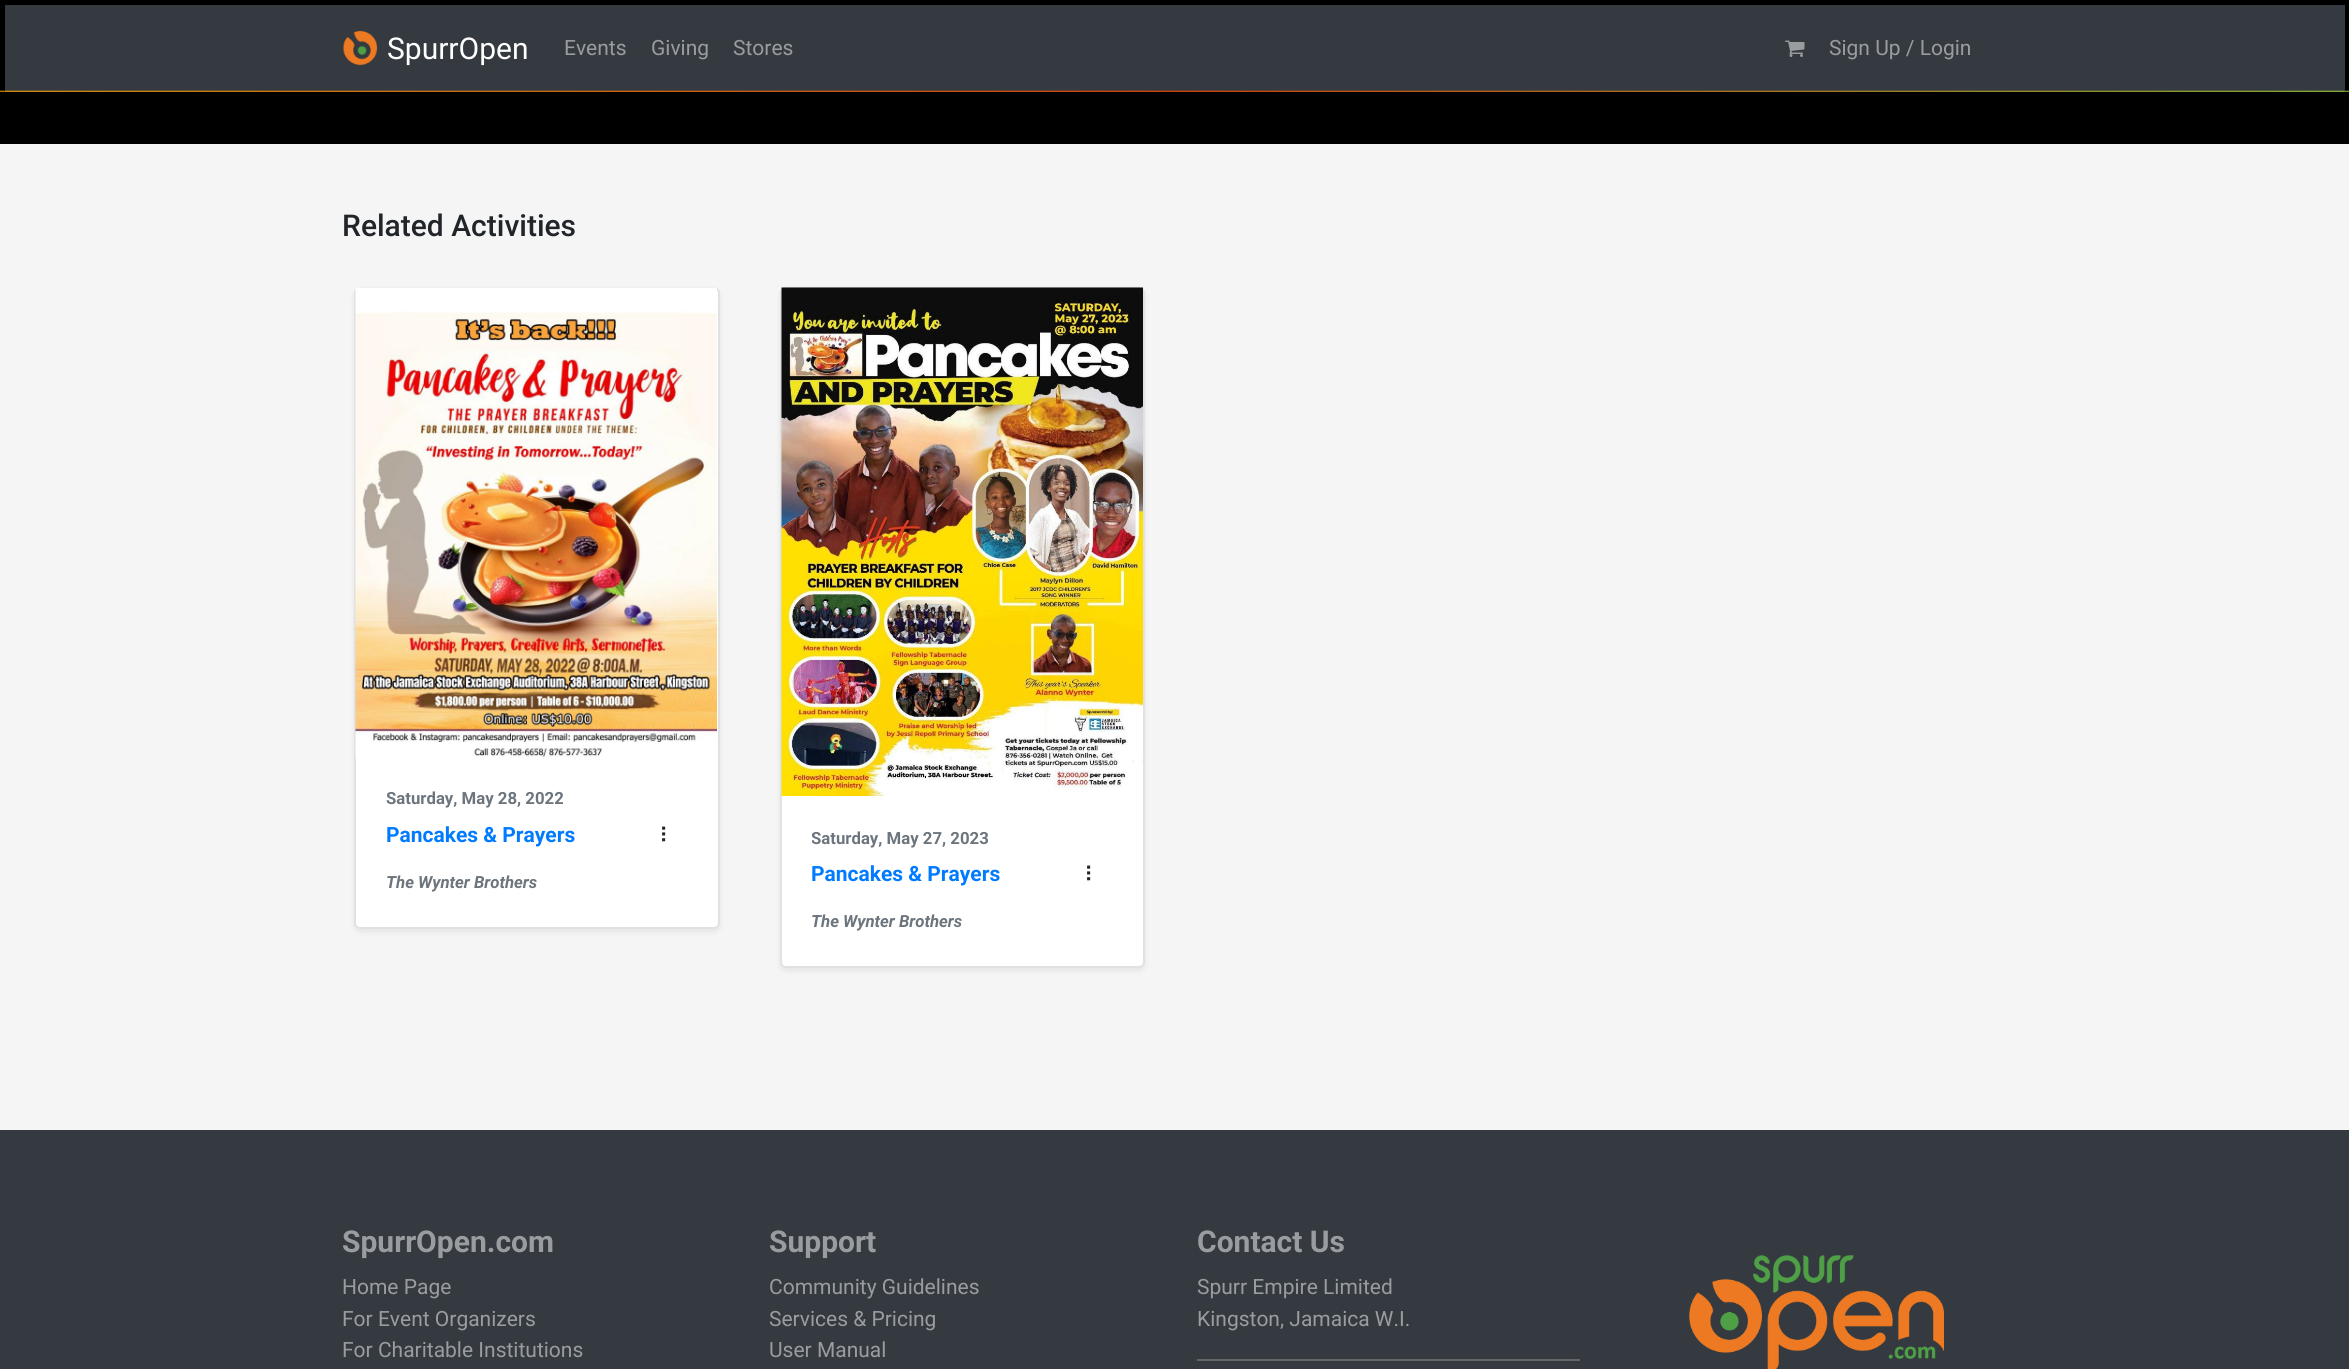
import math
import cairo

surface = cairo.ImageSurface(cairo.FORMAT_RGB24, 2349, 1369)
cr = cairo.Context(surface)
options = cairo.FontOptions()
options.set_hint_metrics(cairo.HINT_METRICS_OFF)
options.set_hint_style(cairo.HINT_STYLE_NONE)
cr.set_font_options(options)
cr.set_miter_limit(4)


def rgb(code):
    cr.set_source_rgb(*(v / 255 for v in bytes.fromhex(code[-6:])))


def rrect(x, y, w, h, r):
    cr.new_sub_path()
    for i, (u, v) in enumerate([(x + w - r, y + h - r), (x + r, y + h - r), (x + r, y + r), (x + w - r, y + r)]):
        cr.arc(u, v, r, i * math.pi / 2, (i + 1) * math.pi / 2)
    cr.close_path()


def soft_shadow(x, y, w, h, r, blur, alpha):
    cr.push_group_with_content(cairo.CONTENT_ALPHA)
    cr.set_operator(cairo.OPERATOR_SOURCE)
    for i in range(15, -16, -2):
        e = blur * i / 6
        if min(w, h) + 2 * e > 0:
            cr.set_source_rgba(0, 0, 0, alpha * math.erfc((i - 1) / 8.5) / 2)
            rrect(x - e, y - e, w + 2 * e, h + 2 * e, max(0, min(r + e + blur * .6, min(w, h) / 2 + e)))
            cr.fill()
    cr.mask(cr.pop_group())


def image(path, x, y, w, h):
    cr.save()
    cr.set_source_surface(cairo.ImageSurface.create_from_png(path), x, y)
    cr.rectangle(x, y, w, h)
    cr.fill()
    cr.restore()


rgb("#343a40")
cr.paint()
for x, y, w, h, color in [
    (0, 144, 2349, 986, "#f5f5f5"),
    (0, 0, 2349, 144, "#000000"),
    (5, 5, 2340, 87, "#343a40"),
]:
    rgb(color)
    cr.rectangle(x, y, w, h)
    cr.fill()
image("img/1.png", 0, 90, 2349, 2)
image("img/2.png", 343, 30, 35, 36)
image("img/3.png", 1785, 40, 20, 17)
rgb("#000000")
soft_shadow(354, 290, 366, 642, 6, 3, 0.07)
rgb("#ffffff")
rrect(354, 287, 366, 642, 6)
cr.fill()
rrect(355, 288, 364, 640, 5)
cr.set_source_rgba(0, 0, 0, 0.12)
cr.stroke()
image("img/4.png", 355, 287, 362, 470)
rgb("#000000")
soft_shadow(780, 290, 365, 681, 6, 3, 0.07)
rgb("#ffffff")
rrect(780, 287, 365, 681, 6)
cr.fill()
rrect(781, 288, 363, 679, 5)
cr.set_source_rgba(0, 0, 0, 0.12)
cr.stroke()
image("img/5.png", 781, 287, 362, 509)
rgb("#666666")
cr.rectangle(1197, 1359, 383, 2)
cr.fill()
image("img/6.png", 1689, 1255, 255, 114)
cr.select_font_face("Roboto")
cr.set_font_size(30)
rgb("#ffffff")
cr.move_to(387, 59)
cr.show_text("SpurrOpen")
cr.set_font_size(21)
rgb("#9a9da0")
for x, y, s in [
    (564, 55, "Events"),
    (651, 55, "Giving"),
    (733, 55, "Stores"),
    (1829, 55, "Sign Up / Login"),
]:
    cr.move_to(x, y)
    cr.show_text(s)
cr.select_font_face("Roboto Medium")
cr.set_font_size(30)
rgb("#212529")
cr.move_to(342, 236)
cr.show_text("Related Activities")
cr.select_font_face("Roboto", cairo.FONT_SLANT_NORMAL, cairo.FONT_WEIGHT_BOLD)
cr.set_font_size(16.75)
rgb("#6c757d")
cr.move_to(386, 804)
cr.show_text("Saturday, May 28, 2022")
cr.set_font_size(21)
rgb("#007bff")
cr.move_to(386, 842)
cr.show_text("Pancakes & Prayers")
cr.select_font_face("DejaVu Sans")
rgb("#212529")
cr.move_to(659, 843)
cr.show_text("⠇")
cr.select_font_face("Roboto", cairo.FONT_SLANT_ITALIC, cairo.FONT_WEIGHT_BOLD)
cr.set_font_size(16.75)
rgb("#6c757d")
cr.move_to(386, 888)
cr.show_text("The Wynter Brothers")
cr.save()
cr.rectangle(812, 827, 301, 25)
cr.clip()
cr.select_font_face("Roboto", cairo.FONT_SLANT_NORMAL, cairo.FONT_WEIGHT_BOLD)
cr.move_to(811, 844)
cr.show_text("Saturday, May 27, 2023")
cr.restore()
cr.select_font_face("Roboto", cairo.FONT_SLANT_NORMAL, cairo.FONT_WEIGHT_BOLD)
cr.set_font_size(21)
rgb("#007bff")
cr.move_to(811, 881)
cr.show_text("Pancakes & Prayers")
cr.select_font_face("DejaVu Sans")
rgb("#212529")
cr.move_to(1084, 882)
cr.show_text("⠇")
cr.select_font_face("Roboto", cairo.FONT_SLANT_ITALIC, cairo.FONT_WEIGHT_BOLD)
cr.set_font_size(16.75)
rgb("#6c757d")
cr.move_to(811, 927)
cr.show_text("The Wynter Brothers")
cr.select_font_face("Roboto", cairo.FONT_SLANT_NORMAL, cairo.FONT_WEIGHT_BOLD)
cr.set_font_size(30)
rgb("#9a9da0")
cr.move_to(342, 1252)
cr.show_text("SpurrOpen.com")
cr.select_font_face("Roboto")
cr.set_font_size(21)
for x, y, s in [
    (342, 1294, "Home Page"),
    (342, 1326, "For Event Organizers"),
    (342, 1357, "For Charitable Institutions"),
]:
    cr.move_to(x, y)
    cr.show_text(s)
cr.select_font_face("Roboto", cairo.FONT_SLANT_NORMAL, cairo.FONT_WEIGHT_BOLD)
cr.set_font_size(30)
cr.move_to(769, 1252)
cr.show_text("Support")
cr.select_font_face("Roboto")
cr.set_font_size(21)
for x, y, s in [
    (769, 1294, "Community Guidelines"),
    (769, 1326, "Services & Pricing"),
    (769, 1357, "User Manual"),
]:
    cr.move_to(x, y)
    cr.show_text(s)
cr.select_font_face("Roboto", cairo.FONT_SLANT_NORMAL, cairo.FONT_WEIGHT_BOLD)
cr.set_font_size(30)
cr.move_to(1197, 1252)
cr.show_text("Contact Us")
cr.select_font_face("Roboto")
cr.set_font_size(21)
cr.move_to(1197, 1294)
cr.show_text("Spurr Empire Limited")
cr.move_to(1197, 1326)
cr.show_text("Kingston, Jamaica W.I.")
surface.write_to_png("page.png")
